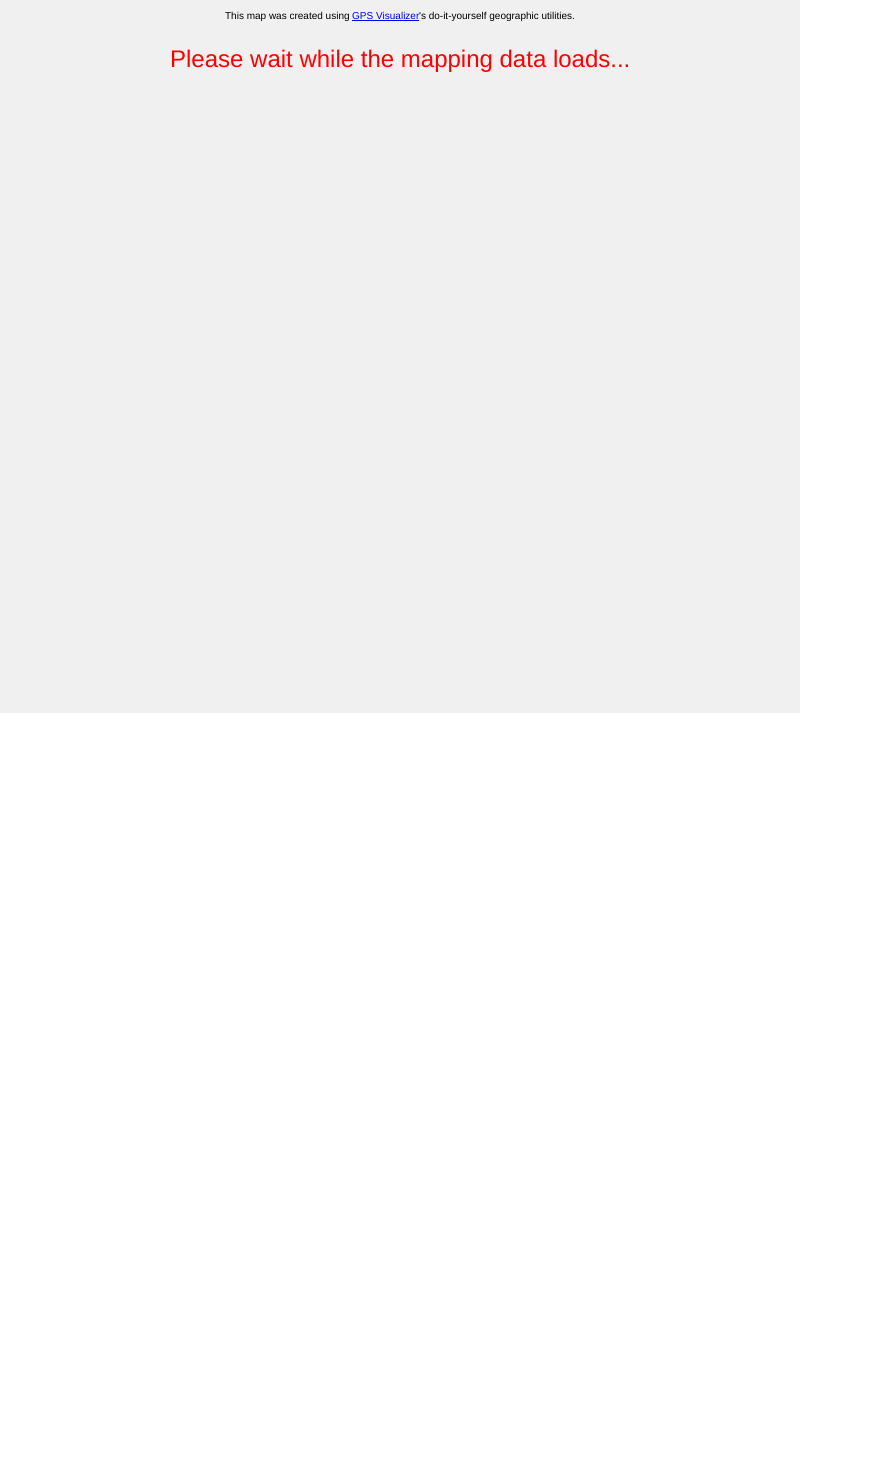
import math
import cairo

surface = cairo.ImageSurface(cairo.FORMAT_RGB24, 896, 1467)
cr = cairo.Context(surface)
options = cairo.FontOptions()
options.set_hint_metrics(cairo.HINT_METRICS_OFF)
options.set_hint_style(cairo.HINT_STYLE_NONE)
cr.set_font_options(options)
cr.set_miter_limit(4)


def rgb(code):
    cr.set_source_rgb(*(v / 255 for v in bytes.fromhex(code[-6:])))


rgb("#ffffff")
cr.paint()
rgb("#f0f0f0")
cr.rectangle(0, 0, 800, 713)
cr.fill()
rgb("#0000ee")
cr.rectangle(352, 20, 67, 1)
cr.fill()
cr.select_font_face("Liberation Sans")
cr.set_font_size(10)
rgb("#000000")
cr.move_to(225, 19)
cr.show_text("This map was created using")
rgb("#0000ee")
cr.move_to(352, 19)
cr.show_text("GPS Visualizer")
rgb("#000000")
cr.move_to(419, 19)
cr.show_text("'s do-it-yourself geographic utilities.")
cr.set_font_size(24)
rgb("#ff0000")
cr.move_to(170, 67)
cr.show_text("Please wait while the mapping data loads...")
surface.write_to_png("page.png")
